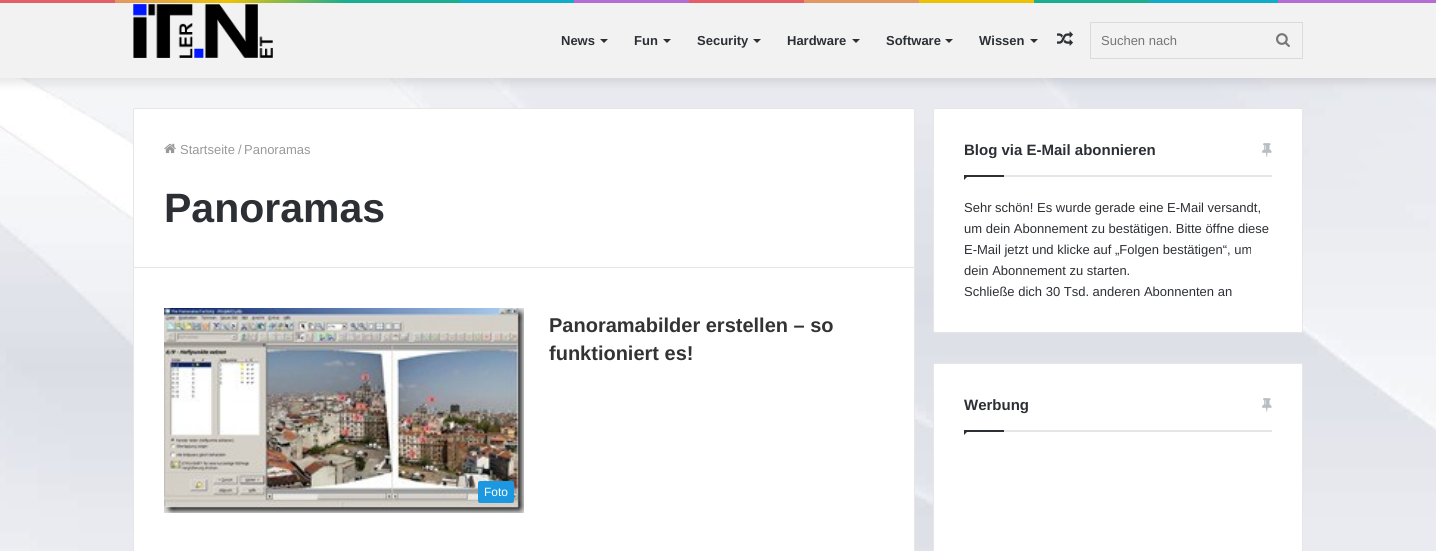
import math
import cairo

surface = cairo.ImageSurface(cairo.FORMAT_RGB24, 1436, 551)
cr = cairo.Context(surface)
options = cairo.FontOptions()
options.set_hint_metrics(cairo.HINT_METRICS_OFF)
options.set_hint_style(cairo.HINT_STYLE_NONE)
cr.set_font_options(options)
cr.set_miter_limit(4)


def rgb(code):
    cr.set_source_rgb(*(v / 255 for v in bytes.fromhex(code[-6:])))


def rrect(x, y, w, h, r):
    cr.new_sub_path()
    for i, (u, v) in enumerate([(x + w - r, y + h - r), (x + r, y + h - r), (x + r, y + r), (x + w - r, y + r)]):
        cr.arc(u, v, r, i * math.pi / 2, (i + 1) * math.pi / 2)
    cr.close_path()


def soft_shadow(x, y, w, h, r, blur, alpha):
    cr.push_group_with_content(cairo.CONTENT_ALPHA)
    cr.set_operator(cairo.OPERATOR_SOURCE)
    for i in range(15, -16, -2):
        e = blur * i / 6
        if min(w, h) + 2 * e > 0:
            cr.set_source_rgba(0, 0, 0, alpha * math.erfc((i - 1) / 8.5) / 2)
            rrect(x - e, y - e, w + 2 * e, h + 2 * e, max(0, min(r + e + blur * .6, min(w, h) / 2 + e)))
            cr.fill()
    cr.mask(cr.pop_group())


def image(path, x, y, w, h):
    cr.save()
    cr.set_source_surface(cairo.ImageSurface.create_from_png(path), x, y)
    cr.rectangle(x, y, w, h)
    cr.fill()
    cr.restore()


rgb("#ffffff")
cr.paint()
image("img/1.png", 0, 78, 1436, 473)
gradient = cairo.LinearGradient(0, 1.5, 1436, 1.5)
gradient.add_color_stop_rgba(0, 0.969, 0.396, 0.439, 1)
gradient.add_color_stop_rgba(0.08, 0.969, 0.396, 0.439, 1)
gradient.add_color_stop_rgba(0.08, 0.953, 0.643, 0.42, 1)
gradient.add_color_stop_rgba(0.16, 1, 0.824, 0.02, 1)
gradient.add_color_stop_rgba(0.24, 0.106, 0.737, 0.608, 1)
gradient.add_color_stop_rgba(0.32, 0.106, 0.737, 0.608, 1)
gradient.add_color_stop_rgba(0.32, 0.078, 0.725, 0.835, 1)
gradient.add_color_stop_rgba(0.4, 0.078, 0.725, 0.835, 1)
gradient.add_color_stop_rgba(0.4, 0.765, 0.467, 0.894, 1)
gradient.add_color_stop_rgba(0.48, 0.765, 0.467, 0.894, 1)
gradient.add_color_stop_rgba(0.48, 0.969, 0.396, 0.439, 1)
gradient.add_color_stop_rgba(0.56, 0.969, 0.396, 0.439, 1)
gradient.add_color_stop_rgba(0.56, 0.953, 0.643, 0.42, 1)
gradient.add_color_stop_rgba(0.64, 0.953, 0.643, 0.42, 1)
gradient.add_color_stop_rgba(0.64, 1, 0.824, 0.02, 1)
gradient.add_color_stop_rgba(0.72, 1, 0.824, 0.02, 1)
gradient.add_color_stop_rgba(0.72, 0.106, 0.737, 0.608, 1)
gradient.add_color_stop_rgba(0.8, 0.106, 0.737, 0.608, 1)
gradient.add_color_stop_rgba(0.8, 0.078, 0.725, 0.835, 1)
gradient.add_color_stop_rgba(0.89, 0.078, 0.725, 0.835, 1)
gradient.add_color_stop_rgba(0.89, 0.765, 0.467, 0.894, 1)
gradient.add_color_stop_rgba(1, 0.765, 0.467, 0.894, 1)
cr.set_source(gradient)
cr.rectangle(0, 0, 1436, 3)
cr.fill()
rgb("#000000")
soft_shadow(-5, -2, 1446, 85, 0, 5, 0.1)
rgb("#f2f2f2")
cr.rectangle(0, 3, 1436, 75)
cr.fill()
image("img/2.png", 133, 4, 140, 54)
rgb("#2c2f34")
cr.new_path()
cr.move_to(600, 39)
cr.line_to(608, 39)
cr.line_to(604, 43)
cr.close_path()
cr.fill()
cr.new_path()
cr.move_to(663, 39)
cr.line_to(671, 39)
cr.line_to(667, 43)
cr.close_path()
cr.fill()
cr.new_path()
cr.move_to(753, 39)
cr.line_to(761, 39)
cr.line_to(757, 43)
cr.close_path()
cr.fill()
cr.new_path()
cr.move_to(852, 39)
cr.line_to(860, 39)
cr.line_to(856, 43)
cr.close_path()
cr.fill()
cr.new_path()
cr.move_to(945, 39)
cr.line_to(953, 39)
cr.line_to(949, 43)
cr.close_path()
cr.fill()
cr.new_path()
cr.move_to(1030, 39)
cr.line_to(1038, 39)
cr.line_to(1034, 43)
cr.close_path()
cr.fill()
image("img/3.png", 1057, 31, 16, 15)
cr.rectangle(1090.5, 22.5, 212, 36)
rgb("#dadada")
cr.set_line_width(1)
cr.stroke()
image("img/4.png", 1276, 33, 14, 14)
rgb("#ffffff")
cr.new_path()
cr.move_to(135, 108)
cr.line_to(913, 108)
cr.curve_to(914, 108, 915, 109, 915, 110)
cr.line_to(915, 268)
cr.line_to(133, 268)
cr.line_to(133, 110)
cr.curve_to(133, 109, 134, 108, 135, 108)
cr.close_path()
cr.fill()
cr.new_path()
cr.move_to(135, 108.5)
cr.line_to(913, 108.5)
cr.curve_to(914, 108.5, 914.5, 109, 914.5, 110)
cr.line_to(914.5, 267.5)
cr.line_to(133.5, 267.5)
cr.line_to(133.5, 110)
cr.curve_to(133.5, 109, 134, 108.5, 135, 108.5)
cr.close_path()
cr.set_source_rgba(0, 0, 0, 0.1)
cr.stroke()
image("img/5.png", 164, 143, 12, 11)
for x, y, w, h, color in [
    (134, 268, 780, 283, "#ffffff"),
    (914, 268, 1, 283, "#e6e6e6"),
    (133, 268, 1, 283, "#e6e6e6"),
]:
    rgb(color)
    cr.rectangle(x, y, w, h)
    cr.fill()
image("img/6.png", 164, 308, 360, 205)
rgb("#1b98e0")
rrect(478, 481, 36, 22, 2)
cr.fill()
rgb("#ffffff")
rrect(933, 108, 370, 225, 2)
cr.fill()
rrect(933.5, 108.5, 369, 224, 1.5)
cr.set_source_rgba(0, 0, 0, 0.1)
cr.stroke()
rgb("#e6e6e6")
cr.rectangle(1004, 175, 268, 2)
cr.fill()
image("img/7.png", 1262, 143, 10, 14)
rgb("#2c2f34")
cr.new_path()
cr.move_to(964, 175)
cr.line_to(969, 175)
cr.line_to(964, 180)
cr.close_path()
cr.fill()
cr.rectangle(964, 175, 40, 2)
cr.fill()
rgb("#ffffff")
rrect(933, 363, 370, 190, 2)
cr.fill()
rrect(933.5, 363.5, 369, 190, 1.5)
cr.set_source_rgba(0, 0, 0, 0.1)
cr.stroke()
rgb("#e6e6e6")
cr.rectangle(1004, 430, 268, 2)
cr.fill()
image("img/7.png", 1262, 398, 10, 14)
rgb("#2c2f34")
cr.new_path()
cr.move_to(964, 430)
cr.line_to(969, 430)
cr.line_to(964, 435)
cr.close_path()
cr.fill()
cr.rectangle(964, 430, 40, 2)
cr.fill()
cr.select_font_face("Liberation Sans", cairo.FONT_SLANT_NORMAL, cairo.FONT_WEIGHT_BOLD)
cr.set_font_size(13)
for x, y, s in [
    (561, 45, "News"),
    (634, 45, "Fun"),
    (697, 45, "Security"),
    (787, 45, "Hardware"),
    (886, 45, "Software"),
    (979, 45, "Wissen"),
]:
    cr.move_to(x, y)
    cr.show_text(s)
cr.select_font_face("Liberation Sans")
rgb("#757575")
cr.move_to(1101, 45)
cr.show_text("Suchen nach")
rgb("#999999")
for x, y, s in [
    (180, 154, "Startseite"),
    (238, 154, "/"),
    (244, 154, "Panoramas"),
]:
    cr.move_to(x, y)
    cr.show_text(s)
cr.select_font_face("Liberation Sans", cairo.FONT_SLANT_NORMAL, cairo.FONT_WEIGHT_BOLD)
cr.set_font_size(41)
rgb("#2c2f34")
cr.move_to(164, 222)
cr.show_text("Panoramas")
cr.set_font_size(20)
rgb("#333333")
cr.move_to(549, 332)
cr.show_text("Panoramabilder erstellen – so")
cr.move_to(549, 360)
cr.show_text("funktioniert es!")
cr.select_font_face("Liberation Sans")
cr.set_font_size(12)
rgb("#ffffff")
cr.move_to(484, 496)
cr.show_text("Foto")
cr.select_font_face("Liberation Sans", cairo.FONT_SLANT_NORMAL, cairo.FONT_WEIGHT_BOLD)
cr.set_font_size(15)
rgb("#2c2f34")
cr.move_to(964, 155)
cr.show_text("Blog via E-Mail abonnieren")
cr.select_font_face("Liberation Sans")
cr.set_font_size(13)
for x, y, s in [
    (964, 212, "Sehr schön! Es wurde gerade eine E-Mail versandt,"),
    (964, 233, "um dein Abonnement zu bestätigen. Bitte öffne diese"),
    (964, 254, "E-Mail jetzt und klicke auf „Folgen bestätigen“, um"),
    (964, 275, "dein Abonnement zu starten."),
    (964, 296, "Schließe dich 30 Tsd. anderen Abonnenten an"),
]:
    cr.move_to(x, y)
    cr.show_text(s)
cr.select_font_face("Liberation Sans", cairo.FONT_SLANT_NORMAL, cairo.FONT_WEIGHT_BOLD)
cr.set_font_size(15)
cr.move_to(964, 410)
cr.show_text("Werbung")
surface.write_to_png("page.png")
